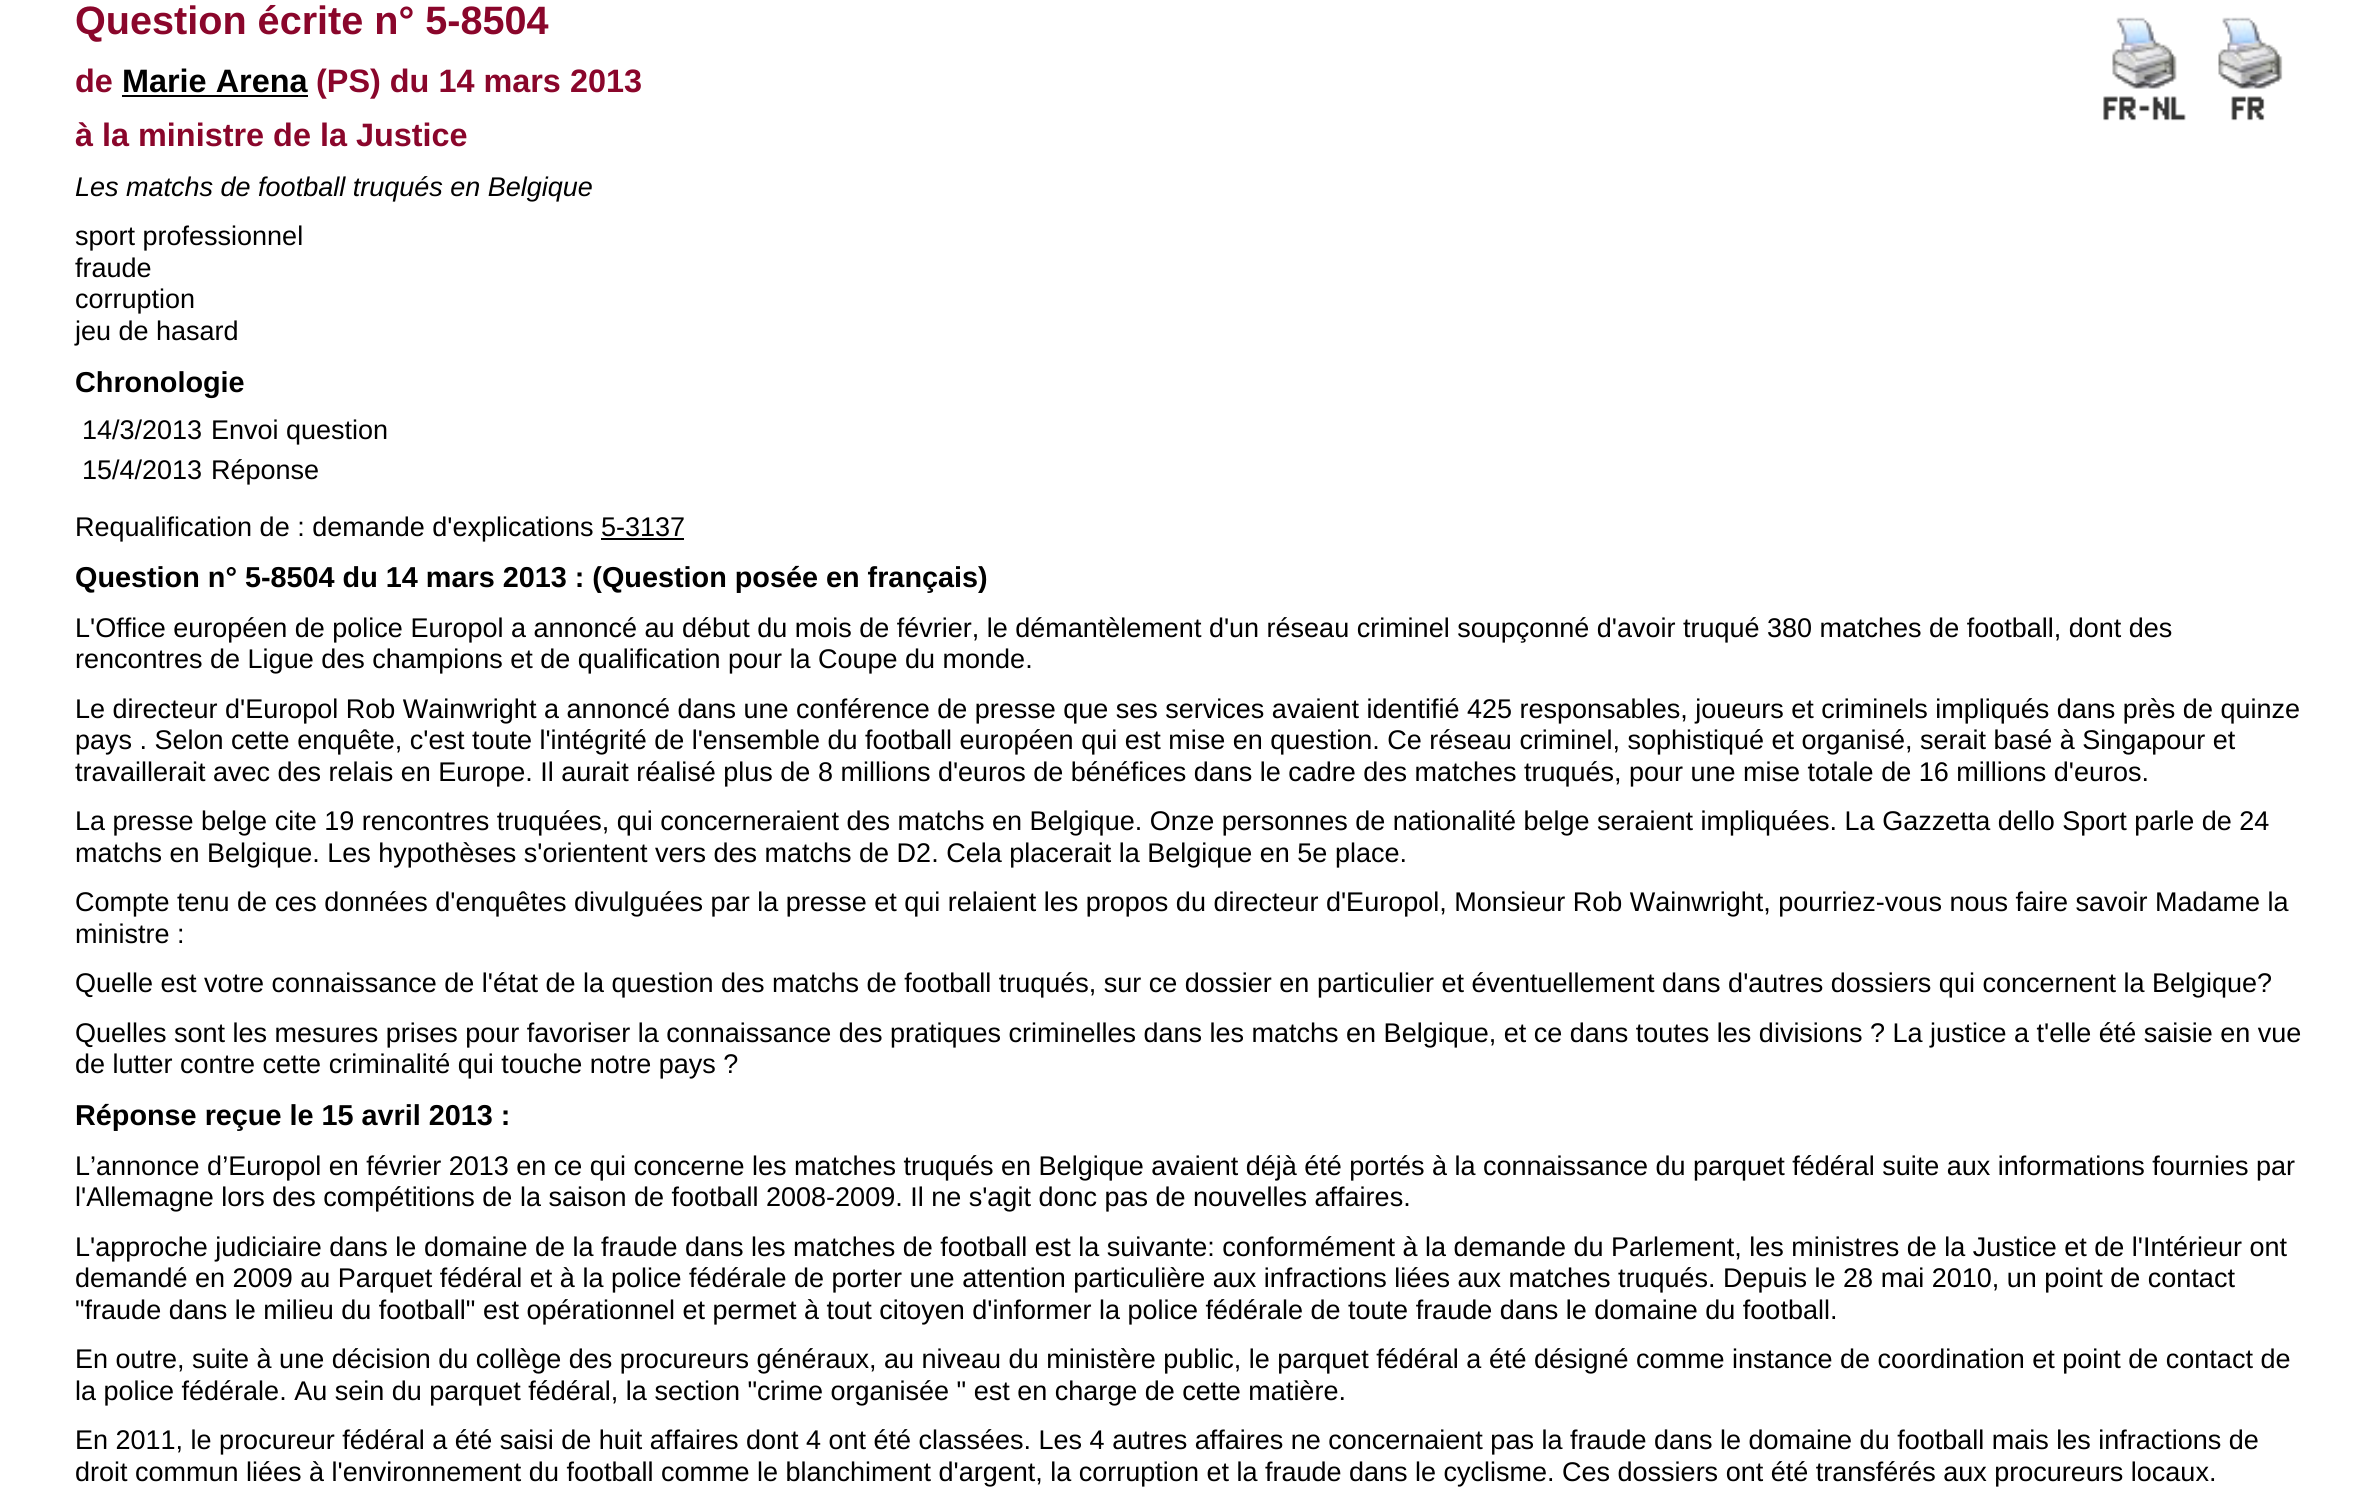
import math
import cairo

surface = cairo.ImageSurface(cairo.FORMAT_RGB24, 2377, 1499)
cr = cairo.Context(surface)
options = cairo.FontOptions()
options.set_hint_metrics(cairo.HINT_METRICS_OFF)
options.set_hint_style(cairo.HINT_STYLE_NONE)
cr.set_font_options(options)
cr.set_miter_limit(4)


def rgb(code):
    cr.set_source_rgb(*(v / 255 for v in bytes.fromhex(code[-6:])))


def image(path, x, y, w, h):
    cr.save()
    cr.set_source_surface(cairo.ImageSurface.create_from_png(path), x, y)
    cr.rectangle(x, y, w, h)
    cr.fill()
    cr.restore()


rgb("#ffffff")
cr.paint()
image("img/1.png", 2103, 17, 83, 104)
image("img/2.png", 2218, 17, 65, 104)
rgb("#000000")
cr.rectangle(122, 95, 186, 2)
cr.fill()
cr.rectangle(601, 538, 83, 2)
cr.fill()
cr.select_font_face("Liberation Sans", cairo.FONT_SLANT_NORMAL, cairo.FONT_WEIGHT_BOLD)
cr.set_font_size(39.6)
rgb("#8a062b")
cr.move_to(75, 34)
cr.show_text("Question écrite n° 5-8504")
cr.set_font_size(32.4)
cr.move_to(75, 92)
cr.show_text("de")
rgb("#000000")
cr.move_to(122, 92)
cr.show_text("Marie Arena")
rgb("#8a062b")
cr.move_to(316, 92)
cr.show_text("(PS) du 14 mars 2013")
cr.move_to(75, 146)
cr.show_text("à la ministre de la Justice")
cr.select_font_face("Liberation Sans", cairo.FONT_SLANT_ITALIC)
cr.set_font_size(27)
rgb("#000000")
cr.move_to(75, 196)
cr.show_text("Les matchs de football truqués en Belgique")
cr.select_font_face("Liberation Sans")
for x, y, s in [
    (75, 245, "sport professionnel"),
    (75, 277, "fraude"),
    (75, 308, "corruption"),
    (75, 340, "jeu de hasard"),
]:
    cr.move_to(x, y)
    cr.show_text(s)
cr.select_font_face("Liberation Sans", cairo.FONT_SLANT_NORMAL, cairo.FONT_WEIGHT_BOLD)
cr.set_font_size(28.8)
cr.move_to(75, 392)
cr.show_text("Chronologie")
cr.select_font_face("Liberation Sans")
cr.set_font_size(27)
for x, y, s in [
    (82, 439, "14/3/2013"),
    (211, 439, "Envoi question"),
    (82, 479, "15/4/2013"),
    (211, 479, "Réponse"),
    (75, 536, "Requalification de : demande d'explications 5-3137"),
]:
    cr.move_to(x, y)
    cr.show_text(s)
cr.select_font_face("Liberation Sans", cairo.FONT_SLANT_NORMAL, cairo.FONT_WEIGHT_BOLD)
cr.set_font_size(28.8)
cr.move_to(75, 587)
cr.show_text("Question n° 5-8504 du 14 mars 2013 : (Question posée en français)")
cr.select_font_face("Liberation Sans")
cr.set_font_size(27)
for x, y, s in [
    (75, 637, "L'Office européen de police Europol a annoncé au début du mois de février, le démantèlement d'un réseau criminel soupçonné d'avoir truqué 380 matches de football, dont des"),
    (75, 668, "rencontres de Ligue des champions et de qualification pour la Coupe du monde."),
    (75, 718, "Le directeur d'Europol Rob Wainwright a annoncé dans une conférence de presse que ses services avaient identifié 425 responsables, joueurs et criminels impliqués dans près de quinze"),
    (75, 749, "pays . Selon cette enquête, c'est toute l'intégrité de l'ensemble du football européen qui est mise en question. Ce réseau criminel, sophistiqué et organisé, serait basé à Singapour et"),
    (75, 781, "travaillerait avec des relais en Europe. Il aurait réalisé plus de 8 millions d'euros de bénéfices dans le cadre des matches truqués, pour une mise totale de 16 millions d'euros."),
    (75, 830, "La presse belge cite 19 rencontres truquées, qui concerneraient des matchs en Belgique. Onze personnes de nationalité belge seraient impliquées. La Gazzetta dello Sport parle de 24"),
    (75, 862, "matchs en Belgique. Les hypothèses s'orientent vers des matchs de D2. Cela placerait la Belgique en 5e place."),
    (75, 911, "Compte tenu de ces données d'enquêtes divulguées par la presse et qui relaient les propos du directeur d'Europol, Monsieur Rob Wainwright, pourriez-vous nous faire savoir Madame la"),
    (75, 943, "ministre :"),
    (75, 992, "Quelle est votre connaissance de l'état de la question des matchs de football truqués, sur ce dossier en particulier et éventuellement dans d'autres dossiers qui concernent la Belgique?"),
    (75, 1042, "Quelles sont les mesures prises pour favoriser la connaissance des pratiques criminelles dans les matchs en Belgique, et ce dans toutes les divisions ? La justice a t'elle été saisie en vue"),
    (75, 1073, "de lutter contre cette criminalité qui touche notre pays ?"),
]:
    cr.move_to(x, y)
    cr.show_text(s)
cr.select_font_face("Liberation Sans", cairo.FONT_SLANT_NORMAL, cairo.FONT_WEIGHT_BOLD)
cr.set_font_size(28.8)
cr.move_to(75, 1125)
cr.show_text("Réponse reçue le 15 avril 2013 :")
cr.select_font_face("Liberation Sans")
cr.set_font_size(27)
for x, y, s in [
    (75, 1175, "L’annonce d’Europol en février 2013 en ce qui concerne les matches truqués en Belgique avaient déjà été portés à la connaissance du parquet fédéral suite aux informations fournies par"),
    (75, 1206, "l'Allemagne lors des compétitions de la saison de football 2008-2009. Il ne s'agit donc pas de nouvelles affaires."),
    (75, 1256, "L'approche judiciaire dans le domaine de la fraude dans les matches de football est la suivante: conformément à la demande du Parlement, les ministres de la Justice et de l'Intérieur ont"),
    (75, 1287, "demandé en 2009 au Parquet fédéral et à la police fédérale de porter une attention particulière aux infractions liées aux matches truqués. Depuis le 28 mai 2010, un point de contact"),
    (75, 1319, "\"fraude dans le milieu du football\" est opérationnel et permet à tout citoyen d'informer la police fédérale de toute fraude dans le domaine du football."),
    (75, 1368, "En outre, suite à une décision du collège des procureurs généraux, au niveau du ministère public, le parquet fédéral a été désigné comme instance de coordination et point de contact de"),
    (75, 1400, "la police fédérale. Au sein du parquet fédéral, la section \"crime organisée \" est en charge de cette matière."),
    (75, 1449, "En 2011, le procureur fédéral a été saisi de huit affaires dont 4 ont été classées. Les 4 autres affaires ne concernaient pas la fraude dans le domaine du football mais les infractions de"),
    (75, 1481, "droit commun liées à l'environnement du football comme le blanchiment d'argent, la corruption et la fraude dans le cyclisme. Ces dossiers ont été transférés aux procureurs locaux."),
]:
    cr.move_to(x, y)
    cr.show_text(s)
surface.write_to_png("page.png")
